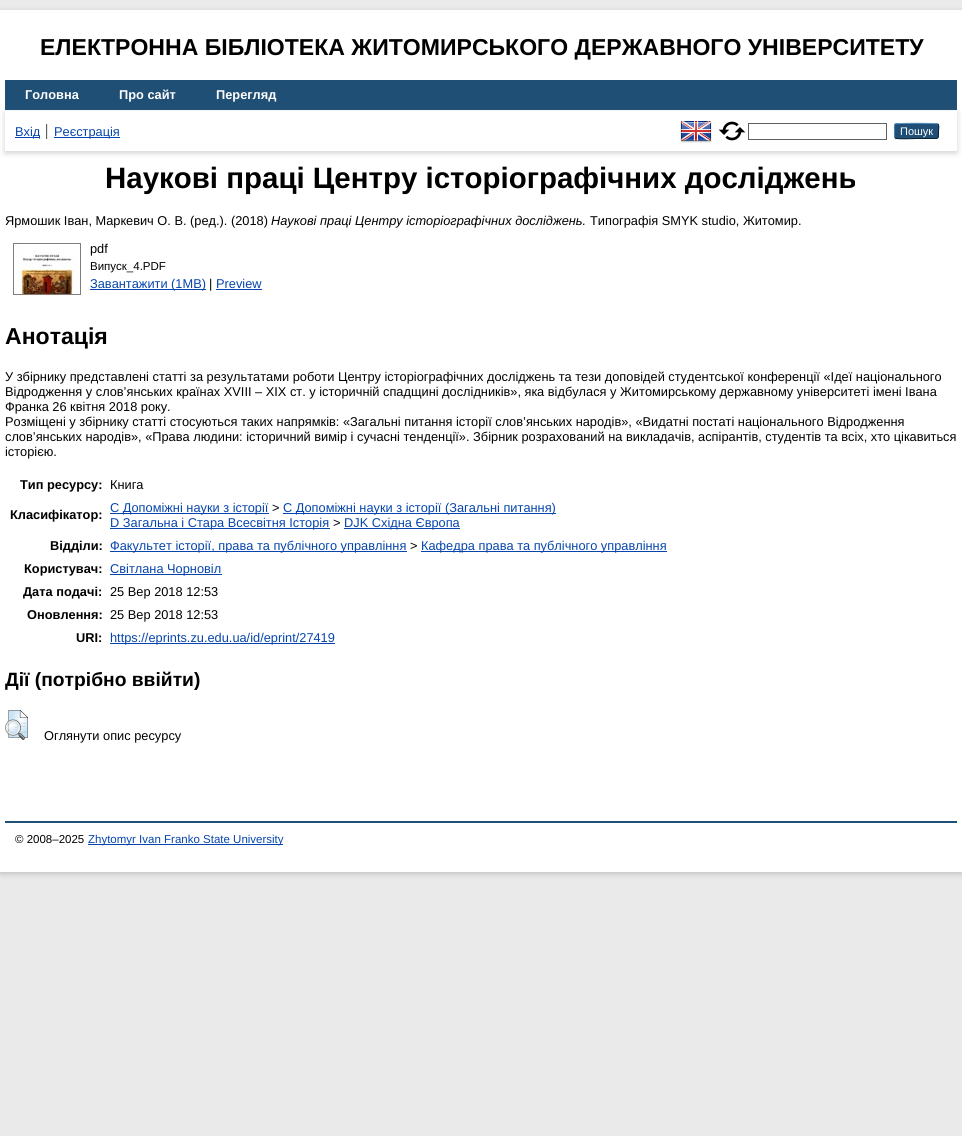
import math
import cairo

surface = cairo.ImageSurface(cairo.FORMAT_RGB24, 962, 1136)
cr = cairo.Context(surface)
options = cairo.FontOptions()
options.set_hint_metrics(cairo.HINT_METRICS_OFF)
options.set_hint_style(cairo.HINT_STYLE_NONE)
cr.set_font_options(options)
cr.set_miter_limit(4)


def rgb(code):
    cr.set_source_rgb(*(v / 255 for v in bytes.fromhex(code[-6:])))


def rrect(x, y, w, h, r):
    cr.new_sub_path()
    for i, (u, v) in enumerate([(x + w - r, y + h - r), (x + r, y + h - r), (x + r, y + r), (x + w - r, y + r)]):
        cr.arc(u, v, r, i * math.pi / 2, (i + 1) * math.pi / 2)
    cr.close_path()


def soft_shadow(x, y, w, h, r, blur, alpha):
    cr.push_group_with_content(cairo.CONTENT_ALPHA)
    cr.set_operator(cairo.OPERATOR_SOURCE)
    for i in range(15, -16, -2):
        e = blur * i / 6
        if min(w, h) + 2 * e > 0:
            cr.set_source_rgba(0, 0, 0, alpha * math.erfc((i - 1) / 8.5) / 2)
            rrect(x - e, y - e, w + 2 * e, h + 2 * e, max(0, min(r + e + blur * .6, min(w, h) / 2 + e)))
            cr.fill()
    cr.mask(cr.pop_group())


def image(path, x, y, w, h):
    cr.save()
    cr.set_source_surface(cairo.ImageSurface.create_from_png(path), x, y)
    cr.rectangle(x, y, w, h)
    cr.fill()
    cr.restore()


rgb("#eaeaea")
cr.paint()
rgb("#646464")
soft_shadow(0, 12, 962, 862, 0, 3, 0.3)
rgb("#ffffff")
cr.rectangle(0, 10, 962, 862)
cr.fill()
rgb("#204f76")
cr.rectangle(5, 80, 952, 30)
cr.fill()
rgb("#646464")
soft_shadow(5, 113, 952, 40, 0, 3, 0.3)
for x, y, w, h, color in [
    (5, 111, 952, 40, "#ffffff"),
    (46, 124, 1, 15, "#606060"),
    (15, 137, 25, 1, "#0645ad"),
    (47, 124, 1, 15, "#e8e8e8"),
    (54, 137, 66, 1, "#0645ad"),
]:
    rgb(color)
    cr.rectangle(x, y, w, h)
    cr.fill()
image("img/1.png", 680, 121, 32, 22)
image("img/2.png", 718, 121, 28, 20)
cr.rectangle(748.5, 123.5, 138, 16)
rgb("#606060")
cr.set_line_width(1)
cr.stroke()
rgb("#1f4f76")
rrect(894, 123, 45, 16, 3)
cr.fill()
cr.new_path()
cr.move_to(895, 124)
cr.curve_to(896.5, 123, 936.5, 123, 938, 124)
rgb("#5b97c7")
cr.stroke()
cr.new_path()
cr.move_to(938, 124)
cr.curve_to(939.5, 126, 938.5, 129, 938.5, 131)
cr.curve_to(938.5, 139.5, 939, 138.5, 929.5, 138.5)
cr.line_to(916.5, 138.5)
cr.curve_to(913.5, 138.5, 897, 139.5, 895, 138)
rgb("#0d2131")
cr.stroke()
cr.new_path()
cr.move_to(895, 138)
cr.curve_to(894, 136.5, 894.5, 132.5, 894.5, 131)
cr.curve_to(894.5, 129.5, 894, 125.5, 895, 124)
rgb("#5287b3")
cr.stroke()
image("img/3.png", 13, 243, 68, 52)
for x, y, w, h, color in [
    (90, 289, 116, 1, "#0645ad"),
    (216, 289, 46, 1, "#0645ad"),
    (110, 513, 159, 1, "#0645ad"),
    (283, 513, 273, 1, "#0645ad"),
    (110, 528, 220, 1, "#0645ad"),
    (344, 528, 116, 1, "#0645ad"),
    (110, 551, 297, 1, "#0645ad"),
    (421, 551, 246, 1, "#0645ad"),
    (110, 574, 112, 1, "#0645ad"),
    (110, 643, 225, 1, "#0645ad"),
]:
    rgb(color)
    cr.rectangle(x, y, w, h)
    cr.fill()
image("img/4.png", 5, 710, 23, 30)
rgb("#204f76")
cr.rectangle(5, 821, 952, 2)
cr.fill()
rgb("#0645ad")
cr.rectangle(88, 844, 195, 1)
cr.fill()
cr.select_font_face("Liberation Sans", cairo.FONT_SLANT_NORMAL, cairo.FONT_WEIGHT_BOLD)
cr.set_font_size(23.05)
rgb("#000000")
cr.move_to(40, 55)
cr.show_text("ЕЛЕКТРОННА БІБЛІОТЕКА ЖИТОМИРСЬКОГО ДЕРЖАВНОГО УНІВЕРСИТЕТУ")
cr.set_font_size(12.8)
rgb("#ffffff")
for x, y, s in [
    (25, 99, "Головна"),
    (119, 99, "Про сайт"),
    (216, 99, "Перегляд"),
]:
    cr.move_to(x, y)
    cr.show_text(s)
cr.select_font_face("Liberation Sans")
rgb("#0645ad")
cr.move_to(15, 136)
cr.show_text("Вхід")
cr.move_to(54, 136)
cr.show_text("Реєстрація")
cr.set_font_size(11)
rgb("#ffffff")
cr.move_to(900, 135)
cr.show_text("Пошук")
cr.select_font_face("Liberation Sans", cairo.FONT_SLANT_NORMAL, cairo.FONT_WEIGHT_BOLD)
cr.set_font_size(29.45)
rgb("#000000")
cr.move_to(105, 188)
cr.show_text("Наукові праці Центру історіографічних досліджень")
cr.select_font_face("Liberation Sans")
cr.set_font_size(12.8)
cr.move_to(5, 225)
cr.show_text("Ярмошик Іван, Маркевич О. В. (ред.). (2018)")
cr.select_font_face("Liberation Sans", cairo.FONT_SLANT_ITALIC)
cr.move_to(271, 225)
cr.show_text("Наукові праці Центру історіографічних досліджень.")
cr.select_font_face("Liberation Sans")
cr.move_to(590, 225)
cr.show_text("Типографія SMYK studio, Житомир.")
cr.move_to(90, 253)
cr.show_text("pdf")
cr.set_font_size(11.5)
cr.move_to(90, 270)
cr.show_text("Випуск_4.PDF")
cr.set_font_size(12.8)
rgb("#0645ad")
cr.move_to(90, 288)
cr.show_text("Завантажити (1MB)")
rgb("#000000")
cr.move_to(209, 288)
cr.show_text("|")
rgb("#0645ad")
cr.move_to(216, 288)
cr.show_text("Preview")
cr.select_font_face("Liberation Sans", cairo.FONT_SLANT_NORMAL, cairo.FONT_WEIGHT_BOLD)
cr.set_font_size(23.05)
rgb("#000000")
cr.move_to(5, 344)
cr.show_text("Анотація")
cr.select_font_face("Liberation Sans")
cr.set_font_size(12.8)
for x, y, s in [
    (5, 381, "У збірнику представлені статті за результатами роботи Центру історіографічних досліджень та тези доповідей студентської конференції «Ідеї національного"),
    (5, 396, "Відродження у слов’янських країнах ХVІІІ – ХІХ ст. у історичній спадщині дослідників», яка відбулася у Житомирському державному університеті імені Івана"),
    (5, 411, "Франка 26 квітня 2018 року."),
    (5, 426, "Розміщені у збірнику статті стосуються таких напрямків: «Загальні питання історії слов’янських народів», «Видатні постаті національного Відродження"),
    (5, 441, "слов’янських народів», «Права людини: історичний вимір і сучасні тенденції». Збірник розрахований на викладачів, аспірантів, студентів та всіх, хто цікавиться"),
    (5, 456, "історією."),
]:
    cr.move_to(x, y)
    cr.show_text(s)
cr.select_font_face("Liberation Sans", cairo.FONT_SLANT_NORMAL, cairo.FONT_WEIGHT_BOLD)
cr.move_to(20, 489)
cr.show_text("Тип ресурсу:")
cr.select_font_face("Liberation Sans")
cr.move_to(110, 489)
cr.show_text("Книга")
cr.select_font_face("Liberation Sans", cairo.FONT_SLANT_NORMAL, cairo.FONT_WEIGHT_BOLD)
cr.move_to(10, 519)
cr.show_text("Класифікатор:")
cr.select_font_face("Liberation Sans")
rgb("#0645ad")
cr.move_to(110, 512)
cr.show_text("C Допоміжні науки з історії")
rgb("#000000")
cr.move_to(272, 512)
cr.show_text(">")
rgb("#0645ad")
cr.move_to(283, 512)
cr.show_text("C Допоміжні науки з історії (Загальні питання)")
cr.move_to(110, 527)
cr.show_text("D Загальна і Стара Всесвітня Історія")
rgb("#000000")
cr.move_to(333, 527)
cr.show_text(">")
rgb("#0645ad")
cr.move_to(344, 527)
cr.show_text("DJK Східна Європа")
cr.select_font_face("Liberation Sans", cairo.FONT_SLANT_NORMAL, cairo.FONT_WEIGHT_BOLD)
rgb("#000000")
cr.move_to(50, 550)
cr.show_text("Відділи:")
cr.select_font_face("Liberation Sans")
rgb("#0645ad")
cr.move_to(110, 550)
cr.show_text("Факультет історії, права та публічного управління")
rgb("#000000")
cr.move_to(410, 550)
cr.show_text(">")
rgb("#0645ad")
cr.move_to(421, 550)
cr.show_text("Кафедра права та публічного управління")
cr.select_font_face("Liberation Sans", cairo.FONT_SLANT_NORMAL, cairo.FONT_WEIGHT_BOLD)
rgb("#000000")
cr.move_to(24, 573)
cr.show_text("Користувач:")
cr.select_font_face("Liberation Sans")
rgb("#0645ad")
cr.move_to(110, 573)
cr.show_text("Світлана Чорновіл")
cr.select_font_face("Liberation Sans", cairo.FONT_SLANT_NORMAL, cairo.FONT_WEIGHT_BOLD)
rgb("#000000")
cr.move_to(23, 596)
cr.show_text("Дата подачі:")
cr.select_font_face("Liberation Sans")
cr.move_to(110, 596)
cr.show_text("25 Вер 2018 12:53")
cr.select_font_face("Liberation Sans", cairo.FONT_SLANT_NORMAL, cairo.FONT_WEIGHT_BOLD)
cr.move_to(27, 619)
cr.show_text("Оновлення:")
cr.select_font_face("Liberation Sans")
cr.move_to(110, 619)
cr.show_text("25 Вер 2018 12:53")
cr.select_font_face("Liberation Sans", cairo.FONT_SLANT_NORMAL, cairo.FONT_WEIGHT_BOLD)
cr.move_to(76, 642)
cr.show_text("URI:")
cr.select_font_face("Liberation Sans")
rgb("#0645ad")
cr.move_to(110, 642)
cr.show_text("https://eprints.zu.edu.ua/id/eprint/27419")
cr.select_font_face("Liberation Sans", cairo.FONT_SLANT_NORMAL, cairo.FONT_WEIGHT_BOLD)
cr.set_font_size(19.25)
rgb("#000000")
cr.move_to(5, 686)
cr.show_text("Дії (потрібно ввійти)")
cr.select_font_face("Liberation Sans")
cr.set_font_size(12.8)
cr.move_to(44, 740)
cr.show_text("Оглянути опис ресурсу")
cr.set_font_size(11.5)
cr.move_to(15, 843)
cr.show_text("© 2008–2025")
rgb("#0645ad")
cr.move_to(88, 843)
cr.show_text("Zhytomyr Ivan Franko State University")
surface.write_to_png("page.png")
